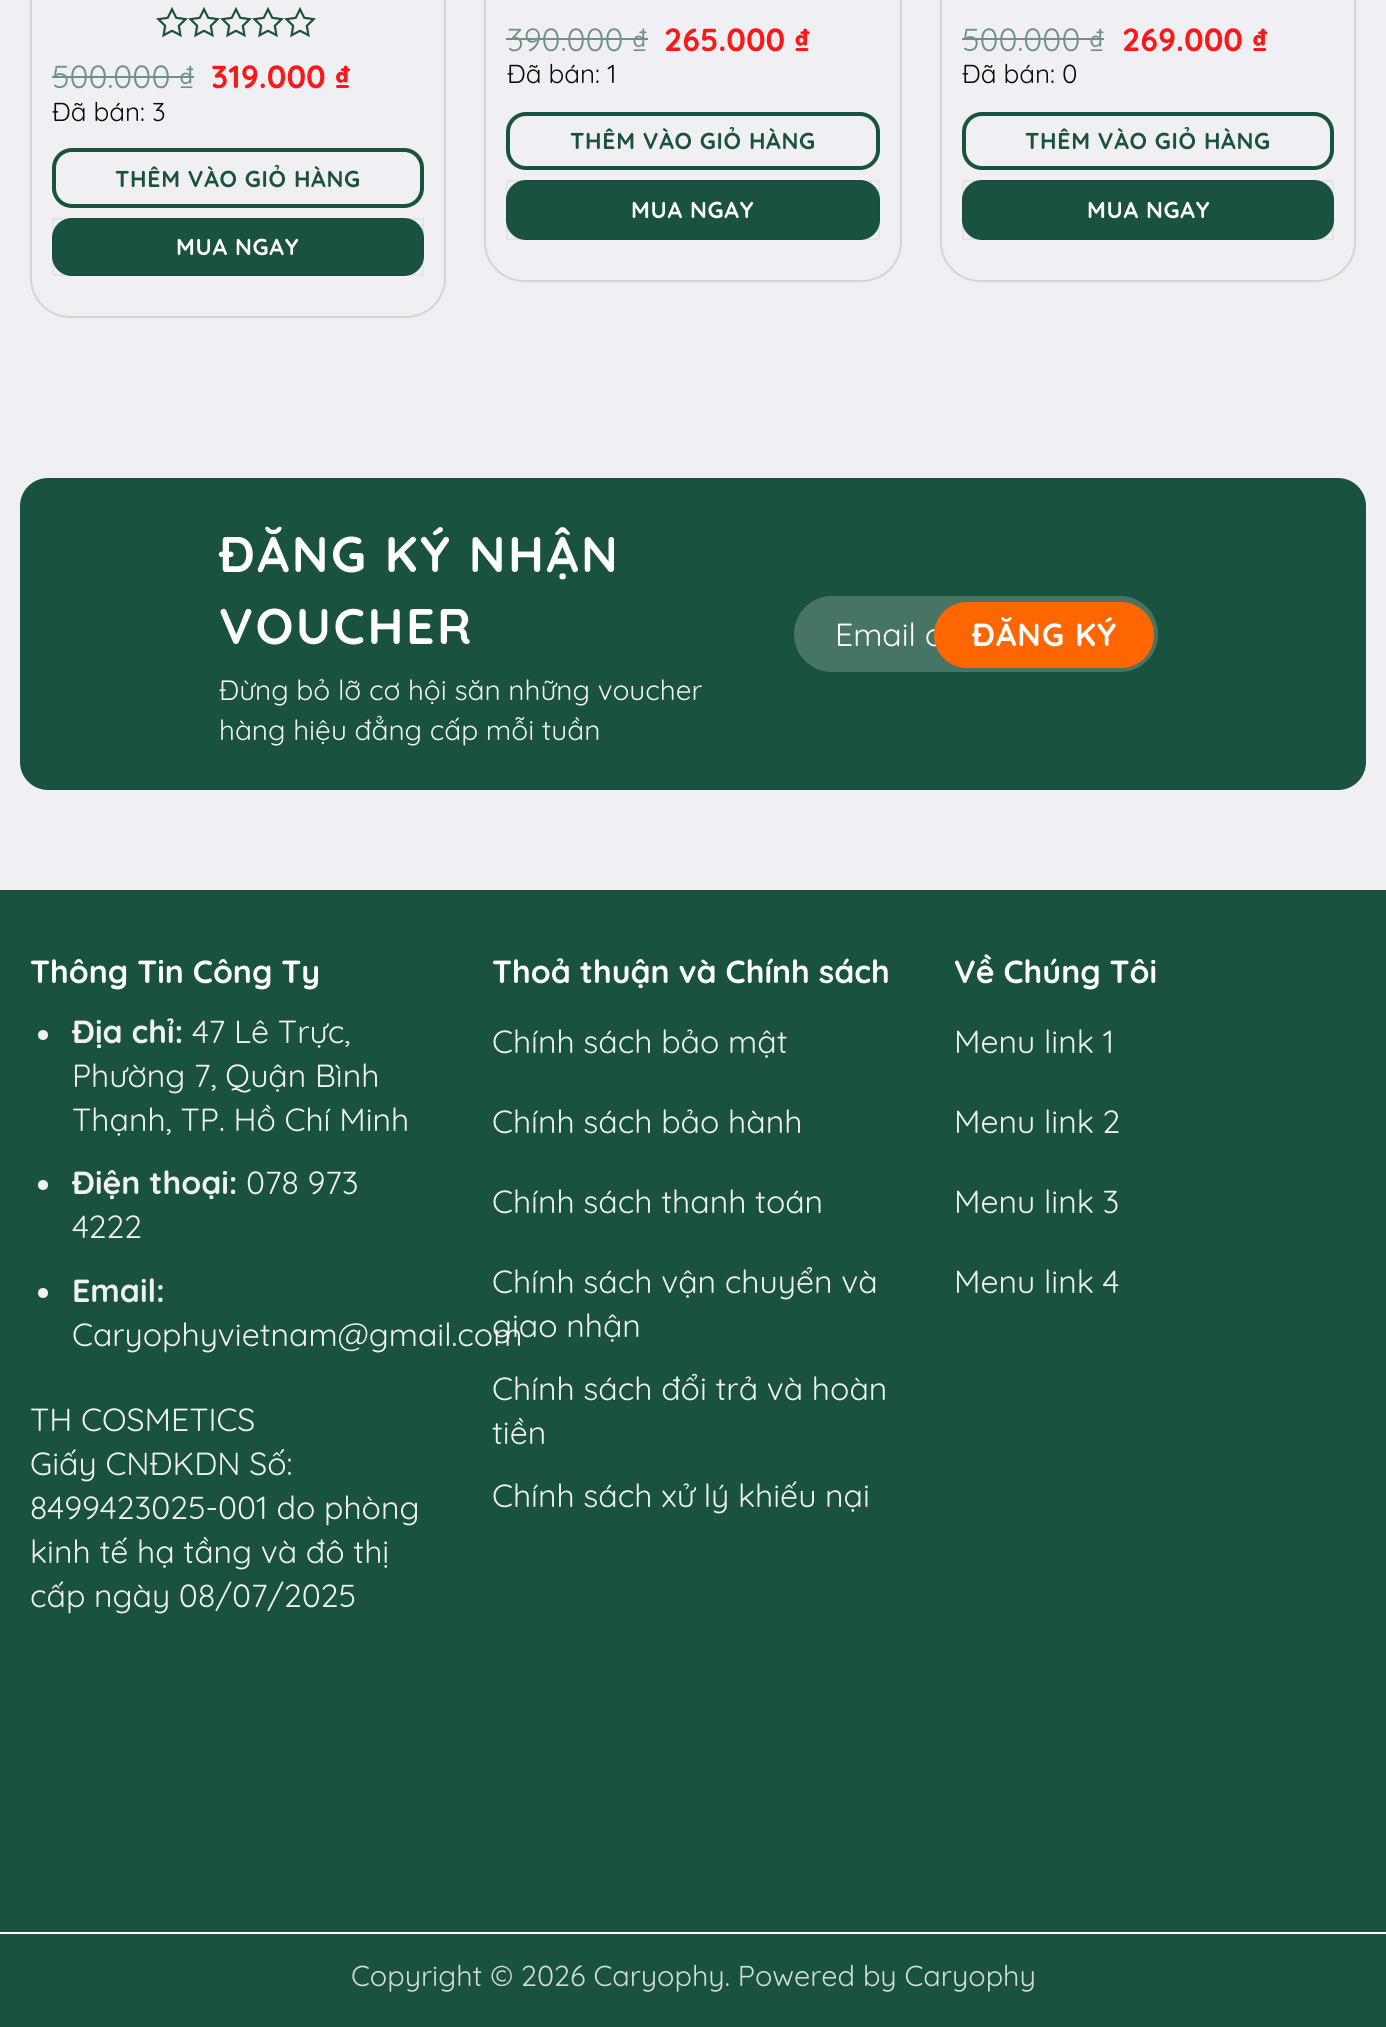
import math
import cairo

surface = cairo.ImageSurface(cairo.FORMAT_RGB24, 1386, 2027)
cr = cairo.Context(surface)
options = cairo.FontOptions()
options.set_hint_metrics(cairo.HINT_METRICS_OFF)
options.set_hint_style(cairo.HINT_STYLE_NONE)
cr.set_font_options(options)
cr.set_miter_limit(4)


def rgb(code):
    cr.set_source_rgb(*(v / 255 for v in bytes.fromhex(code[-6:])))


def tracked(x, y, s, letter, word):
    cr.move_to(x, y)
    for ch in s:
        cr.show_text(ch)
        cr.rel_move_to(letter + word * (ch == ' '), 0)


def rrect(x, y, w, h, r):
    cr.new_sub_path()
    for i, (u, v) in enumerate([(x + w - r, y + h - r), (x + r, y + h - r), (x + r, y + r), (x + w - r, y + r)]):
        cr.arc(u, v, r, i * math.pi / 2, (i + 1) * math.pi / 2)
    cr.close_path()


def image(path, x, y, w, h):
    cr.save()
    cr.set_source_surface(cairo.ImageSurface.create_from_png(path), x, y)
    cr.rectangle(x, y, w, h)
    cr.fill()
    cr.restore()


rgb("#f0f0f4")
cr.paint()
rrect(31, -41, 414, 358, 39)
rgb("#d5d5d5")
cr.stroke()
image("img/1.png", 156, 7, 160, 31)
rgb("#6f9187")
cr.rectangle(52, 76, 142, 2)
cr.fill()
rrect(54, 150, 368, 56, 18)
rgb("#19523e")
cr.set_line_width(4)
cr.stroke()
rrect(52, 218, 372, 58, 20)
cr.fill()
cr.rectangle(53, 219, 370, 56)
cr.set_source_rgba(0, 0, 0, 0.05)
cr.set_line_width(2)
cr.stroke()
rrect(485, -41, 416, 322, 39)
rgb("#d5d5d5")
cr.stroke()
rgb("#6f9187")
cr.rectangle(506, 38, 142, 2)
cr.fill()
rrect(508, 114, 370, 54, 18)
rgb("#19523e")
cr.set_line_width(4)
cr.stroke()
rrect(506, 180, 374, 60, 20)
cr.fill()
cr.rectangle(507, 181, 372, 58)
cr.set_source_rgba(0, 0, 0, 0.05)
cr.set_line_width(2)
cr.stroke()
rrect(941, -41, 414, 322, 39)
rgb("#d5d5d5")
cr.stroke()
rgb("#6f9187")
cr.rectangle(962, 38, 142, 2)
cr.fill()
rrect(964, 114, 368, 54, 18)
rgb("#19523e")
cr.set_line_width(4)
cr.stroke()
rrect(962, 180, 372, 60, 20)
cr.fill()
cr.rectangle(963, 181, 370, 58)
cr.set_source_rgba(0, 0, 0, 0.05)
cr.set_line_width(2)
cr.stroke()
rgb("#19523e")
rrect(20, 478, 1346, 312, 28)
cr.fill()
rgb("#477565")
rrect(794, 596, 364, 76, 38)
cr.fill()
rgb("#19523e")
cr.rectangle(0, 890, 1386, 1042)
cr.fill()
rgb("#f1f1f1")
cr.arc(43, 1035, 5, 0, 2 * math.pi)
cr.fill()
cr.arc(43, 1185, 5, 0, 2 * math.pi)
cr.fill()
cr.arc(43, 1293, 5, 0, 2 * math.pi)
cr.fill()
rgb("#19523e")
cr.rectangle(0, 1934, 1386, 93)
cr.fill()
rgb("#ffffff")
cr.rectangle(0, 1932, 1386, 2)
cr.fill()
cr.select_font_face("Quicksand")
cr.set_font_size(32)
rgb("#6f9187")
cr.move_to(52, 88)
cr.show_text("500.000 ₫")
cr.select_font_face("Quicksand", cairo.FONT_SLANT_NORMAL, cairo.FONT_WEIGHT_BOLD)
rgb("#fa1919")
cr.move_to(211, 88)
cr.show_text("319.000 ₫")
cr.select_font_face("Quicksand")
cr.set_font_size(26)
rgb("#0a0a0a")
cr.move_to(52, 121)
cr.show_text("Đã bán: 3")
cr.select_font_face("Quicksand", cairo.FONT_SLANT_NORMAL, cairo.FONT_WEIGHT_BOLD)
cr.set_font_size(23)
rgb("#19523e")
tracked(115, 187, "THÊM VÀO GIỎ HÀNG", 0.7, 0)
rgb("#ffffff")
tracked(176, 255, "MUA NGAY", 0.7, 0)
cr.select_font_face("Quicksand")
cr.set_font_size(32)
rgb("#6f9187")
cr.move_to(507, 51)
cr.show_text("390.000 ₫")
cr.select_font_face("Quicksand", cairo.FONT_SLANT_NORMAL, cairo.FONT_WEIGHT_BOLD)
rgb("#fa1919")
cr.move_to(664, 51)
cr.show_text("265.000 ₫")
cr.select_font_face("Quicksand")
cr.set_font_size(26)
rgb("#0a0a0a")
cr.move_to(507, 83)
cr.show_text("Đã bán: 1")
cr.select_font_face("Quicksand", cairo.FONT_SLANT_NORMAL, cairo.FONT_WEIGHT_BOLD)
cr.set_font_size(23)
rgb("#19523e")
tracked(570, 149, "THÊM VÀO GIỎ HÀNG", 0.7, 0)
rgb("#ffffff")
tracked(631, 218, "MUA NGAY", 0.7, 0)
cr.select_font_face("Quicksand")
cr.set_font_size(32)
rgb("#6f9187")
cr.move_to(962, 51)
cr.show_text("500.000 ₫")
cr.select_font_face("Quicksand", cairo.FONT_SLANT_NORMAL, cairo.FONT_WEIGHT_BOLD)
rgb("#fa1919")
cr.move_to(1122, 51)
cr.show_text("269.000 ₫")
cr.select_font_face("Quicksand")
cr.set_font_size(26)
rgb("#0a0a0a")
cr.move_to(962, 83)
cr.show_text("Đã bán: 0")
cr.select_font_face("Quicksand", cairo.FONT_SLANT_NORMAL, cairo.FONT_WEIGHT_BOLD)
cr.set_font_size(23)
rgb("#19523e")
tracked(1025, 149, "THÊM VÀO GIỎ HÀNG", 0.7, 0)
rgb("#ffffff")
tracked(1087, 218, "MUA NGAY", 0.7, 0)
cr.set_font_size(50)
tracked(219, 572, "ĐĂNG KÝ NHẬN", 2.5, 0)
tracked(219, 644, "VOUCHER", 2.5, 0)
cr.select_font_face("Quicksand")
cr.set_font_size(28)
rgb("#f1f1f1")
cr.move_to(219, 700)
cr.show_text("Đừng bỏ lỡ cơ hội săn những voucher")
cr.move_to(219, 740)
cr.show_text("hàng hiệu đẳng cấp mỗi tuần")
cr.set_font_size(32)
rgb("#ffffff")
cr.move_to(835, 646)
cr.show_text("Email c")
rgb("#ff6600")
rrect(934, 602, 220, 66, 33)
cr.fill()
cr.select_font_face("Quicksand", cairo.FONT_SLANT_NORMAL, cairo.FONT_WEIGHT_BOLD)
rgb("#ffffff")
tracked(972, 646, "ĐĂNG KÝ", 1, 0)
cr.move_to(30, 983)
cr.show_text("Thông Tin Công Ty")
rgb("#f1f1f1")
cr.move_to(72, 1043)
cr.show_text("Địa chỉ:")
cr.select_font_face("Quicksand")
for x, y, s in [
    (192, 1043, "47 Lê Trực,"),
    (72, 1087, "Phường 7, Quận Bình"),
    (72, 1131, "Thạnh, TP. Hồ Chí Minh"),
]:
    cr.move_to(x, y)
    cr.show_text(s)
cr.select_font_face("Quicksand", cairo.FONT_SLANT_NORMAL, cairo.FONT_WEIGHT_BOLD)
cr.move_to(72, 1194)
cr.show_text("Điện thoại:")
cr.select_font_face("Quicksand")
cr.move_to(246, 1194)
cr.show_text("078 973")
cr.move_to(72, 1238)
cr.show_text("4222")
cr.select_font_face("Quicksand", cairo.FONT_SLANT_NORMAL, cairo.FONT_WEIGHT_BOLD)
cr.move_to(72, 1302)
cr.show_text("Email:")
cr.select_font_face("Quicksand")
for x, y, s in [
    (72, 1346, "Caryophyvietnam@gmail.com"),
    (30, 1431, "TH COSMETICS"),
    (30, 1475, "Giấy CNĐKDN Số:"),
    (30, 1519, "8499423025-001 do phòng"),
    (30, 1563, "kinh tế hạ tầng và đô thị"),
    (30, 1607, "cấp ngày 08/07/2025"),
]:
    cr.move_to(x, y)
    cr.show_text(s)
cr.select_font_face("Quicksand", cairo.FONT_SLANT_NORMAL, cairo.FONT_WEIGHT_BOLD)
rgb("#ffffff")
cr.move_to(492, 983)
cr.show_text("Thoả thuận và Chính sách")
cr.select_font_face("Quicksand")
rgb("#f1f1f1")
for x, y, s in [
    (492, 1053, "Chính sách bảo mật"),
    (492, 1133, "Chính sách bảo hành"),
    (492, 1213, "Chính sách thanh toán"),
    (492, 1293, "Chính sách vận chuyển và"),
    (492, 1337, "giao nhận"),
    (492, 1400, "Chính sách đổi trả và hoàn"),
    (492, 1444, "tiền"),
    (492, 1507, "Chính sách xử lý khiếu nại"),
]:
    cr.move_to(x, y)
    cr.show_text(s)
cr.select_font_face("Quicksand", cairo.FONT_SLANT_NORMAL, cairo.FONT_WEIGHT_BOLD)
rgb("#ffffff")
cr.move_to(954, 983)
cr.show_text("Về Chúng Tôi")
cr.select_font_face("Quicksand")
rgb("#f1f1f1")
for x, y, s in [
    (954, 1053, "Menu link 1"),
    (954, 1133, "Menu link 2"),
    (954, 1213, "Menu link 3"),
    (954, 1293, "Menu link 4"),
]:
    cr.move_to(x, y)
    cr.show_text(s)
cr.set_font_size(28.8)
rgb("#d1dcd8")
cr.move_to(351, 1986)
cr.show_text("Copyright © 2026 Caryophy. Powered by Caryophy")
surface.write_to_png("page.png")
